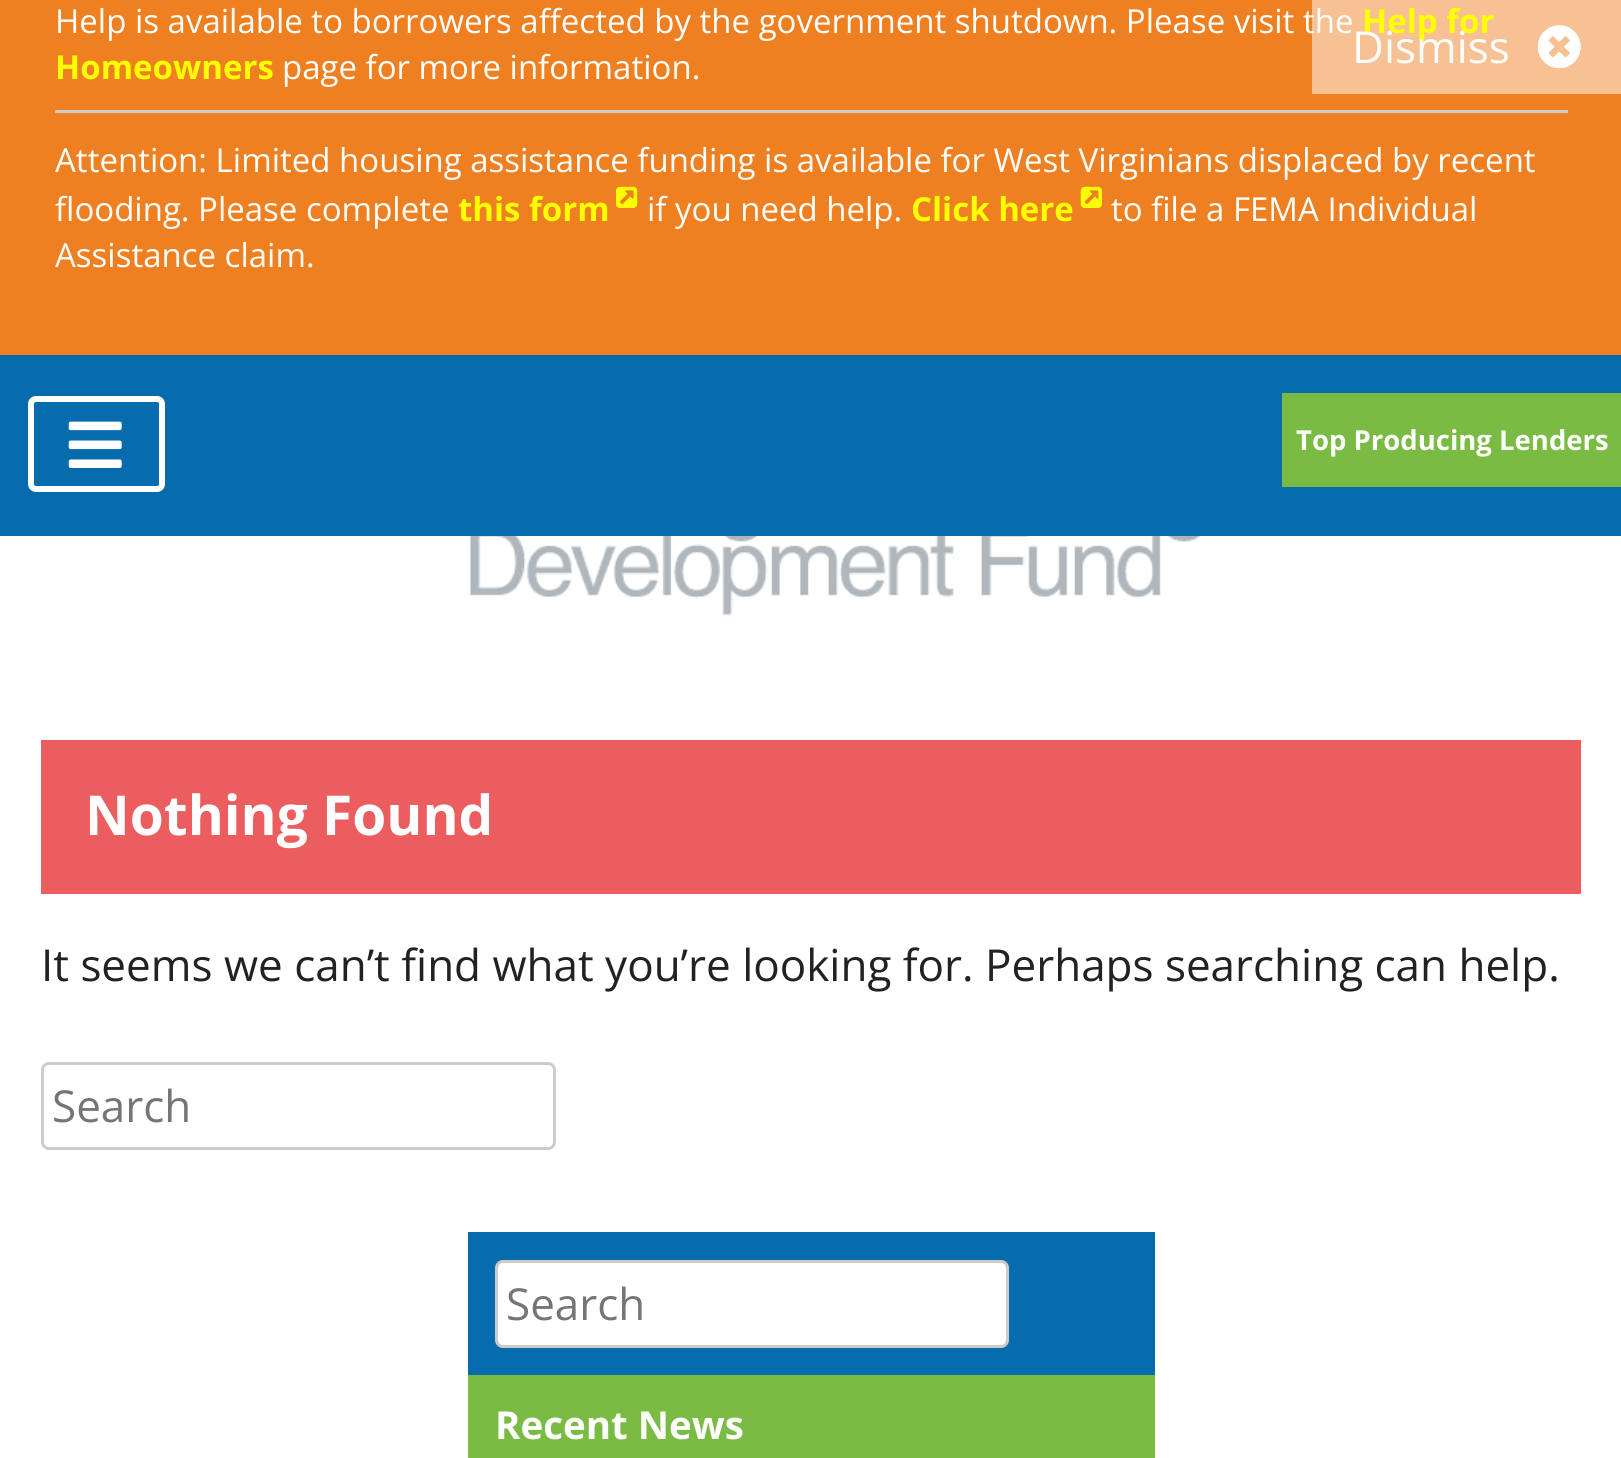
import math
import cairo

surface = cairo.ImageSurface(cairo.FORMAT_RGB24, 1621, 1458)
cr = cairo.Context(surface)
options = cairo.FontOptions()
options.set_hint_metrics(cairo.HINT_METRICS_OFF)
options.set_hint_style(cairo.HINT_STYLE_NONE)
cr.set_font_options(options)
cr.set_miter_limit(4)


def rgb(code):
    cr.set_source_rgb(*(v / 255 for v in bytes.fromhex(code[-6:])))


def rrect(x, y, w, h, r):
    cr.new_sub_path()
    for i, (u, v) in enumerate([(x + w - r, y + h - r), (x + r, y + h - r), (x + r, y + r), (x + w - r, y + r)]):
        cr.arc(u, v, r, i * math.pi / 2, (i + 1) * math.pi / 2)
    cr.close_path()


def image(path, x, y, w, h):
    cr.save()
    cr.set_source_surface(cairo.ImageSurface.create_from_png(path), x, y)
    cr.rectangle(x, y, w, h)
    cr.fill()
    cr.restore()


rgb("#ffffff")
cr.paint()
rgb("#ee8022")
cr.rectangle(0, 0, 1621, 355)
cr.fill()
rgb("#cccccc")
cr.rectangle(55, 110, 1513, 3)
cr.fill()
image("img/1.png", 616, 186, 22, 22)
image("img/2.png", 1080, 186, 22, 22)
rgb("#f7c193")
cr.rectangle(1312, 0, 309, 94)
cr.fill()
image("img/4.png", 1537, 25, 44, 44)
image("img/3.png", 1537, 25, 44, 44)
rgb("#076cae")
cr.rectangle(0, 355, 1621, 181)
cr.fill()
rrect(31, 399, 131, 90, 5)
rgb("#ffffff")
cr.set_line_width(6)
cr.stroke()
image("img/5.png", 68, 421, 54, 47)
rgb("#7abb43")
cr.rectangle(1282, 393, 339, 94)
cr.fill()
image("img/6.png", 468, 536, 734, 80)
rgb("#eb5d5e")
cr.rectangle(41, 740, 1540, 154)
cr.fill()
rrect(42.5, 1063.5, 512, 85, 6.5)
rgb("#cccccc")
cr.set_line_width(3)
cr.stroke()
rgb("#076cae")
cr.rectangle(468, 1232, 687, 143)
cr.fill()
rgb("#ffffff")
rrect(496.5, 1261.5, 511, 85, 6.5)
cr.fill_preserve()
rgb("#cccccc")
cr.stroke()
rgb("#7abb43")
cr.rectangle(468, 1375, 687, 83)
cr.fill()
cr.select_font_face("Open Sans")
cr.set_font_size(33)
rgb("#ffffff")
cr.move_to(55, 33)
cr.show_text("Help is available to borrowers affected by the government shutdown. Please visit the")
cr.select_font_face("Open Sans", cairo.FONT_SLANT_NORMAL, cairo.FONT_WEIGHT_BOLD)
rgb("#ffff00")
cr.move_to(1362, 33)
cr.show_text("Help for")
cr.move_to(55, 79)
cr.show_text("Homeowners")
cr.select_font_face("Open Sans")
rgb("#ffffff")
for x, y, s in [
    (282, 79, "page for more information."),
    (55, 172, "Attention: Limited housing assistance funding is available for West Virginians displaced by recent"),
    (55, 221, "flooding. Please complete"),
]:
    cr.move_to(x, y)
    cr.show_text(s)
cr.select_font_face("Open Sans", cairo.FONT_SLANT_NORMAL, cairo.FONT_WEIGHT_BOLD)
rgb("#ffff00")
cr.move_to(458, 221)
cr.show_text("this form")
cr.select_font_face("Open Sans")
rgb("#ffffff")
cr.move_to(647, 221)
cr.show_text("if you need help.")
cr.select_font_face("Open Sans", cairo.FONT_SLANT_NORMAL, cairo.FONT_WEIGHT_BOLD)
rgb("#ffff00")
cr.move_to(911, 221)
cr.show_text("Click here")
cr.select_font_face("Open Sans")
rgb("#ffffff")
cr.move_to(1111, 221)
cr.show_text("to file a FEMA Individual")
cr.move_to(55, 267)
cr.show_text("Assistance claim.")
cr.set_font_size(44)
cr.move_to(1352, 63)
cr.show_text("Dismiss")
cr.select_font_face("Open Sans", cairo.FONT_SLANT_NORMAL, cairo.FONT_WEIGHT_BOLD)
cr.set_font_size(27.5)
cr.move_to(1296, 450)
cr.show_text("Top Producing Lenders")
cr.set_font_size(55)
cr.move_to(85, 835)
cr.show_text("Nothing Found")
cr.select_font_face("Open Sans")
cr.set_font_size(44)
rgb("#222222")
cr.move_to(41, 981)
cr.show_text("It seems we can’t find what you’re looking for. Perhaps searching can help.")
rgb("#757575")
cr.move_to(52, 1122)
cr.show_text("Search")
cr.move_to(506, 1320)
cr.show_text("Search")
cr.select_font_face("Open Sans", cairo.FONT_SLANT_NORMAL, cairo.FONT_WEIGHT_BOLD)
cr.set_font_size(38.5)
rgb("#ffffff")
cr.move_to(495, 1439)
cr.show_text("Recent News")
surface.write_to_png("page.png")
